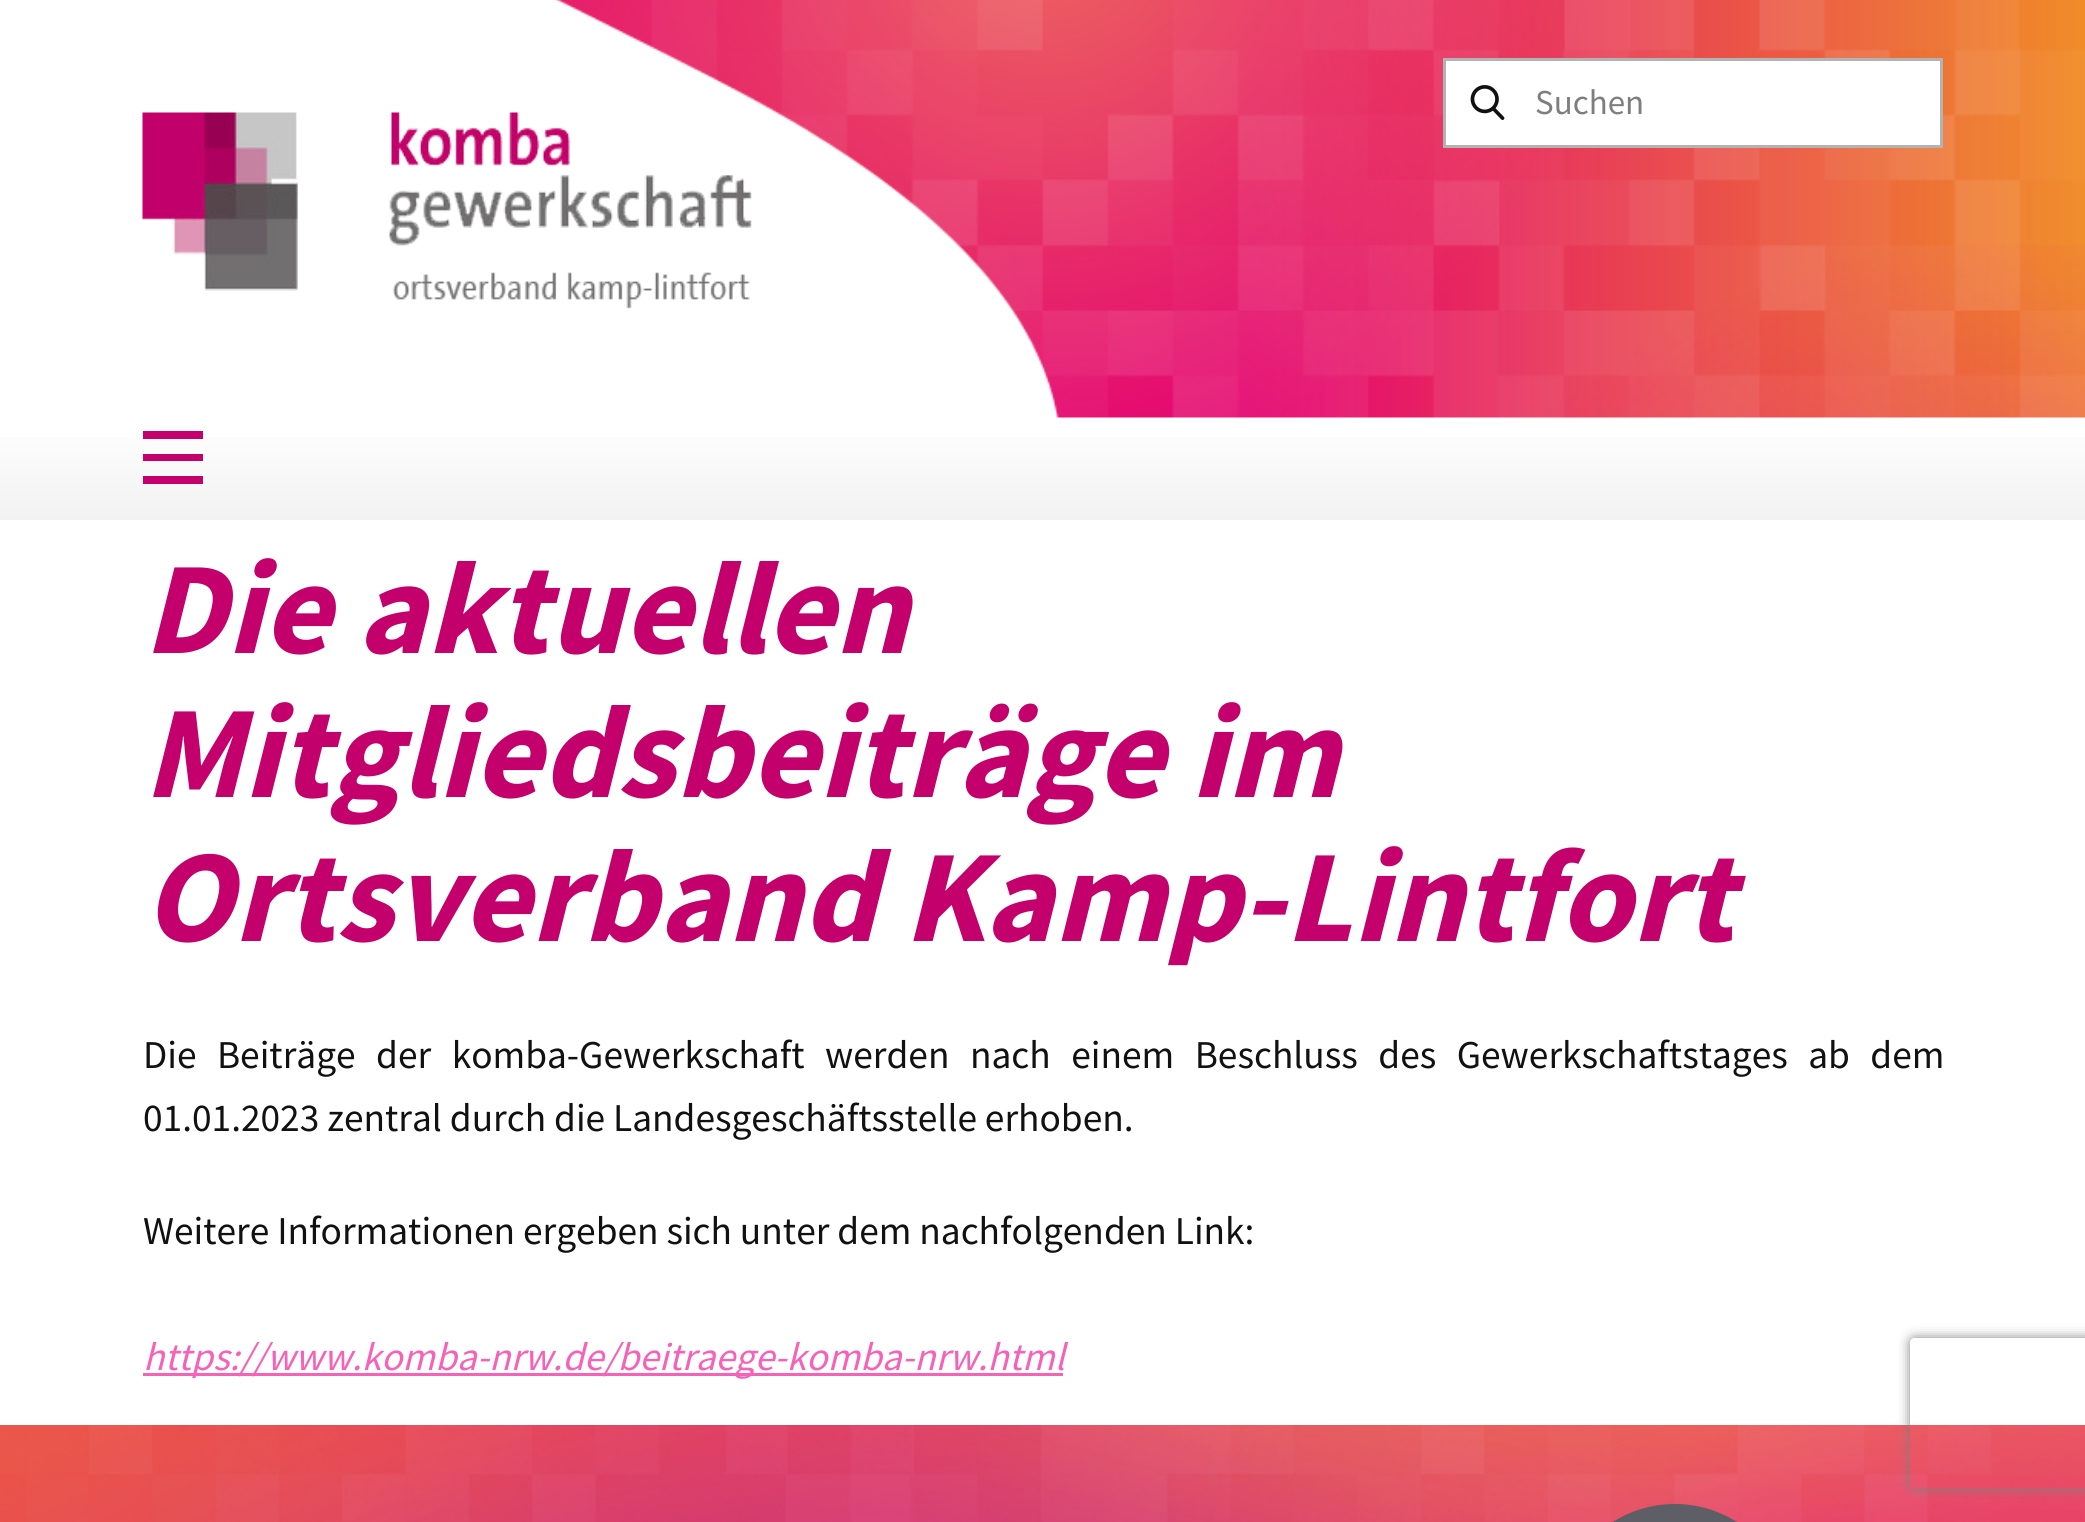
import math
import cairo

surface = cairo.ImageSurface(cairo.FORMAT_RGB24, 2085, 1522)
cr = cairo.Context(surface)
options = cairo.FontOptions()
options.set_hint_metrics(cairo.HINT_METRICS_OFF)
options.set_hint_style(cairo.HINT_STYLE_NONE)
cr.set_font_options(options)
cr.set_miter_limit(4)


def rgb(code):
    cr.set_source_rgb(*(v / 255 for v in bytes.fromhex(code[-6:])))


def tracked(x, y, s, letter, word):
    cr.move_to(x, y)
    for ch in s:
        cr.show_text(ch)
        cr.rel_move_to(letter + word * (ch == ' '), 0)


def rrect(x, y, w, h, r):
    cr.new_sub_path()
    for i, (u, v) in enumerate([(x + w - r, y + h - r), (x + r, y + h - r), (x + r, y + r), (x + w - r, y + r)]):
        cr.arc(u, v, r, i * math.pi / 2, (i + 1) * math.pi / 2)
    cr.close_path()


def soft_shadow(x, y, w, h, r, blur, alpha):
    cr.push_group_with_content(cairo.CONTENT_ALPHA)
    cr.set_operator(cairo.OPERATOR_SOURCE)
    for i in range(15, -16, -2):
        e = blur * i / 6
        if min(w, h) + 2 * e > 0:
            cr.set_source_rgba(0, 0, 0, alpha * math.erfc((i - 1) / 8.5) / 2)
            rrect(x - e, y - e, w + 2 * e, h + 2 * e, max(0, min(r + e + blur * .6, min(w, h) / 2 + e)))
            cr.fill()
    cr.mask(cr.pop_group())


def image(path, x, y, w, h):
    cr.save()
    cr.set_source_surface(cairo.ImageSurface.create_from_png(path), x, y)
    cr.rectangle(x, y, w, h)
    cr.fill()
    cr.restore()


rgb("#ffffff")
cr.paint()
image("img/1.png", 555, 0, 1530, 418)
rgb("#ffffff")
cr.rectangle(1444.5, 59.5, 497, 87)
cr.fill_preserve()
rgb("#b3b3b3")
cr.set_line_width(3)
cr.stroke()
image("img/2.png", 1470, 85, 35, 35)
image("img/3.png", 142, 112, 610, 197)
gradient = cairo.LinearGradient(1043, 417, 1043, 520)
gradient.add_color_stop_rgba(0, 1, 1, 1, 1)
gradient.add_color_stop_rgba(1, 0.949, 0.949, 0.949, 1)
cr.set_source(gradient)
cr.rectangle(0, 437, 2085, 83)
cr.fill()
for x, y, w, h, color in [
    (143, 431, 60, 8, "#c3006b"),
    (143, 454, 60, 7, "#c3006b"),
    (143, 476, 60, 8, "#c3006b"),
    (143, 1373, 920, 3, "#f761b7"),
]:
    rgb(color)
    cr.rectangle(x, y, w, h)
    cr.fill()
image("img/4.png", 0, 1425, 2085, 97)
cr.save()
cr.set_fill_rule(cairo.FILL_RULE_EVEN_ODD)
cr.new_path()
cr.move_to(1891, 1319)
cr.line_to(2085, 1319)
cr.line_to(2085, 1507)
cr.line_to(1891, 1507)
cr.close_path()
cr.move_to(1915, 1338)
cr.line_to(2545, 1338)
cr.curve_to(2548, 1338, 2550, 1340, 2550, 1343)
cr.line_to(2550, 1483)
cr.curve_to(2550, 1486, 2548, 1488, 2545, 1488)
cr.line_to(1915, 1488)
cr.curve_to(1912, 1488, 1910, 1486, 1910, 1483)
cr.line_to(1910, 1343)
cr.curve_to(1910, 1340, 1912, 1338, 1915, 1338)
cr.close_path()
cr.clip()
rgb("#808080")
soft_shadow(1910, 1338, 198, 150, 5, 6, 1)
cr.restore()
image("img/5.png", 1613, 1504, 124, 18)
cr.select_font_face("Source Sans Pro")
cr.set_font_size(35)
rgb("#7e7e7e")
cr.move_to(1535, 114)
cr.show_text("Suchen")
cr.select_font_face("Source Sans Pro", cairo.FONT_SLANT_ITALIC, cairo.FONT_WEIGHT_BOLD)
cr.set_font_size(131.25)
rgb("#c3006b")
for x, y, s in [
    (143, 653, "Die aktuellen"),
    (143, 797, "Mitgliedsbeiträge im"),
    (143, 941, "Ortsverband Kamp-Lintfort"),
]:
    cr.move_to(x, y)
    cr.show_text(s)
cr.select_font_face("Source Sans Pro")
cr.set_font_size(39.4)
rgb("#111111")
tracked(143, 1068, "Die Beiträge der komba-Gewerkschaft werden nach einem Beschluss des Gewerkschaftstages ab dem", 0, 12.6)
cr.move_to(143, 1131)
cr.show_text("01.01.2023 zentral durch die Landesgeschäftsstelle erhoben.")
cr.move_to(143, 1244)
cr.show_text("Weitere Informationen ergeben sich unter dem nachfolgenden Link:")
cr.select_font_face("Source Sans Pro", cairo.FONT_SLANT_ITALIC)
rgb("#f761b7")
cr.move_to(143, 1370)
cr.show_text("https://www.komba-nrw.de/beitraege-komba-nrw.html")
surface.write_to_png("page.png")
